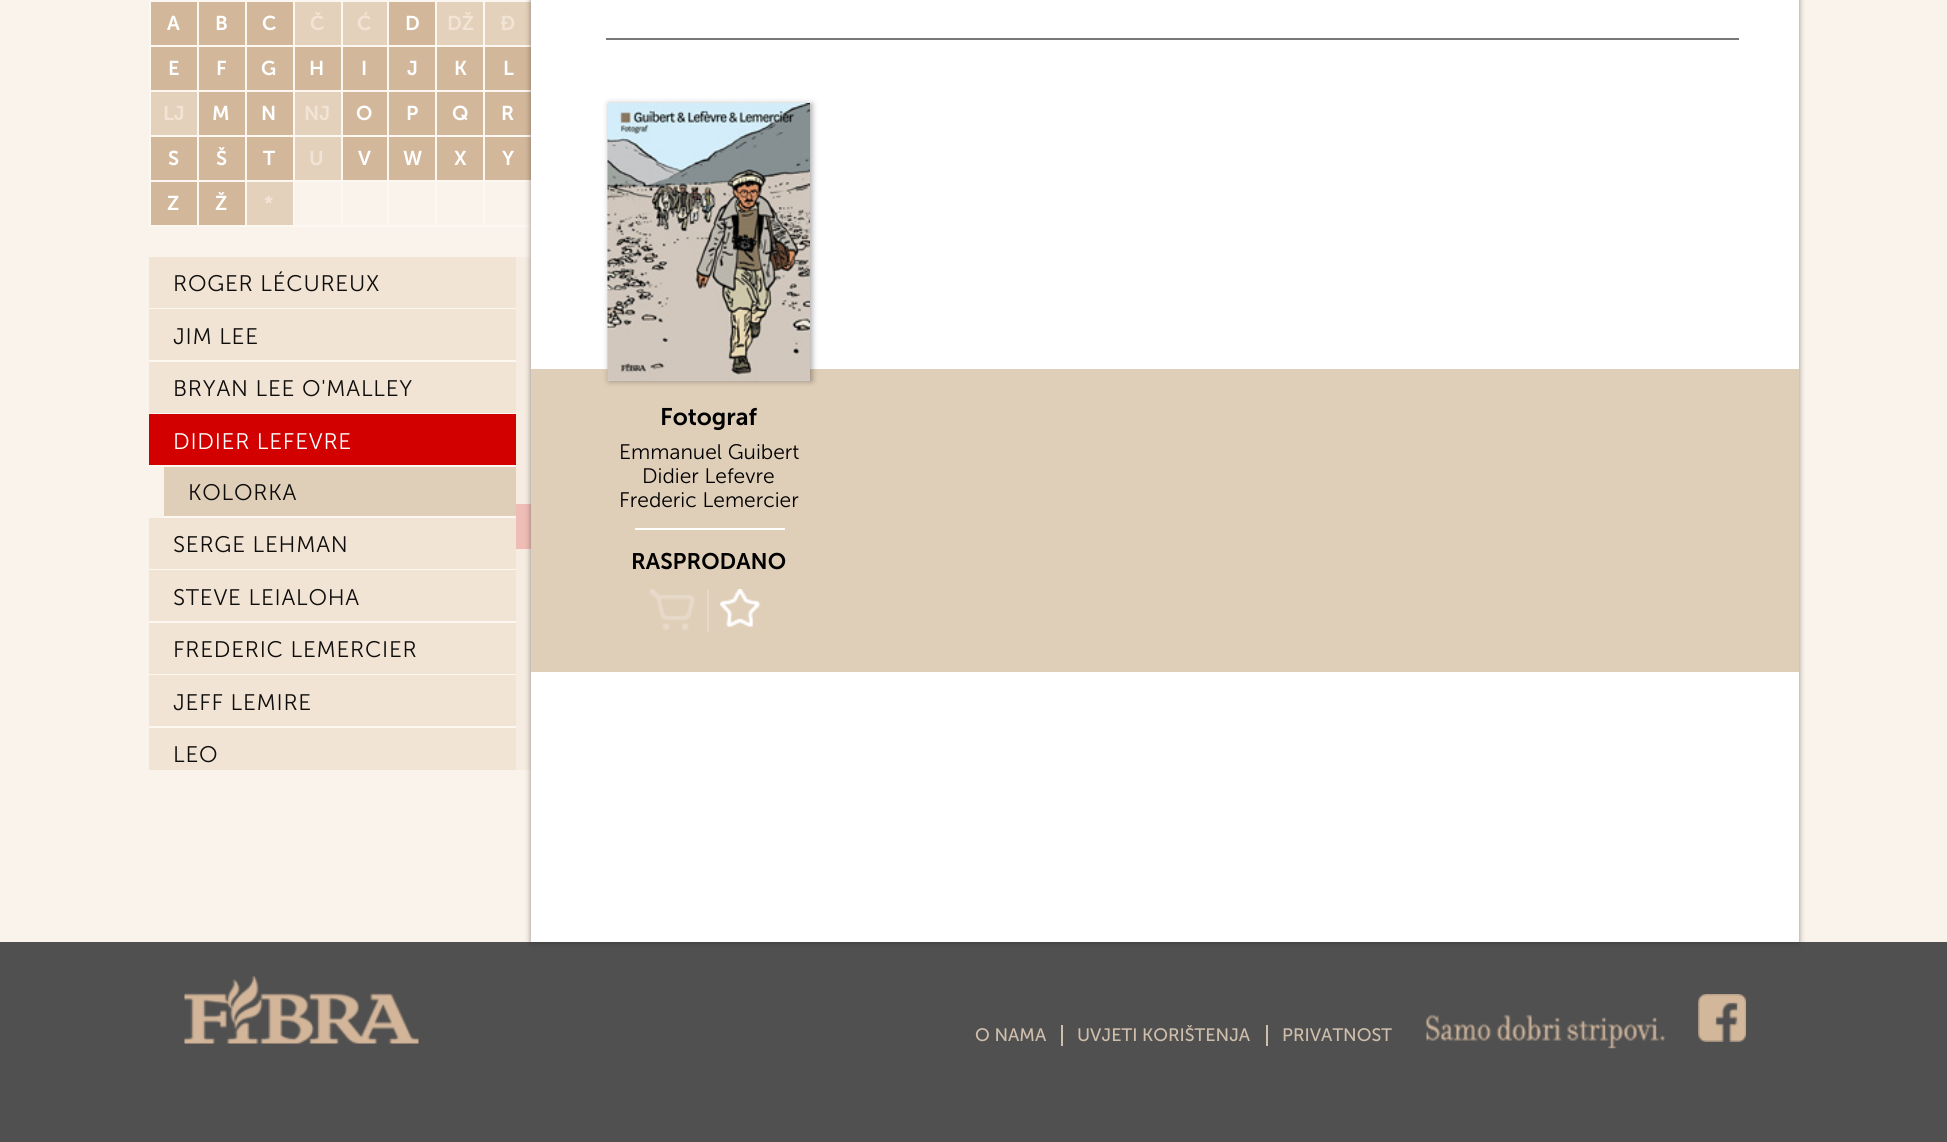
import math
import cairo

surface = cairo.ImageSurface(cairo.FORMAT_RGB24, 1947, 1142)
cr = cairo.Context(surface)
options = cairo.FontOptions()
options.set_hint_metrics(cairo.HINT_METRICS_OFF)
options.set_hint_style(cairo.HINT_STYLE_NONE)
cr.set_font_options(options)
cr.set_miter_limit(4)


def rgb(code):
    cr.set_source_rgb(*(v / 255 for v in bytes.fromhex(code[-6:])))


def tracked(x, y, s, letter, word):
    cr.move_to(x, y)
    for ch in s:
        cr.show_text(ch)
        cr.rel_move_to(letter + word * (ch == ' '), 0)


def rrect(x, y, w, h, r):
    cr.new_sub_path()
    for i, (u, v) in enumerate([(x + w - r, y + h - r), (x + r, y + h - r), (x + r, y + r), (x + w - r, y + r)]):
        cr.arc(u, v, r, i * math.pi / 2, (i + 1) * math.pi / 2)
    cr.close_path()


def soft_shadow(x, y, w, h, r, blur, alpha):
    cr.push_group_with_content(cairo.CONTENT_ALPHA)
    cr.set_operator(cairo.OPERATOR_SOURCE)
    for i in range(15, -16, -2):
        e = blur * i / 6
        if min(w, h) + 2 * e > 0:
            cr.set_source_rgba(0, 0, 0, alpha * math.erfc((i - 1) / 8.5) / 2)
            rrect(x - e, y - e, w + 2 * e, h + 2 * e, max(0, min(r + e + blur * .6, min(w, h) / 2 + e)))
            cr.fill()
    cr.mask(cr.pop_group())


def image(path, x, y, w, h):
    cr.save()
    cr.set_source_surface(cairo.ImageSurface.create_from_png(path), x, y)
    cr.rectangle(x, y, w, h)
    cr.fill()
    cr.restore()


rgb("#faf3eb")
cr.paint()
for x, y, w, h, color in [
    (151, 2, 46, 43, "#d2b79b"),
    (483, 0, 50, 2, "#fdf7f1"),
    (483, 45, 50, 2, "#fdf7f1"),
    (483, 90, 50, 2, "#fdf7f1"),
    (483, 135, 50, 2, "#fdf7f1"),
    (483, 180, 50, 2, "#fdf7f1"),
    (483, 225, 50, 2, "#fdf7f1"),
    (483, 180, 2, 47, "#fdf7f1"),
    (435, 180, 50, 2, "#fdf7f1"),
    (483, 135, 2, 47, "#fdf7f1"),
    (435, 135, 50, 2, "#fdf7f1"),
    (483, 90, 2, 47, "#fdf7f1"),
    (435, 90, 50, 2, "#fdf7f1"),
    (483, 45, 2, 47, "#fdf7f1"),
    (435, 45, 50, 2, "#fdf7f1"),
    (483, 0, 2, 47, "#fdf7f1"),
    (435, 0, 50, 2, "#fdf7f1"),
    (435, 225, 50, 2, "#fdf7f1"),
    (435, 180, 2, 47, "#fdf7f1"),
    (387, 180, 50, 2, "#fdf7f1"),
    (435, 135, 2, 47, "#fdf7f1"),
    (387, 135, 50, 2, "#fdf7f1"),
    (435, 90, 2, 47, "#fdf7f1"),
    (387, 90, 50, 2, "#fdf7f1"),
    (435, 45, 2, 47, "#fdf7f1"),
    (387, 45, 50, 2, "#fdf7f1"),
    (435, 0, 2, 47, "#fdf7f1"),
    (387, 0, 50, 2, "#fdf7f1"),
    (387, 225, 50, 2, "#fdf7f1"),
    (387, 180, 2, 47, "#fdf7f1"),
    (341, 180, 48, 2, "#fdf7f1"),
    (387, 135, 2, 47, "#fdf7f1"),
    (341, 135, 48, 2, "#fdf7f1"),
    (387, 90, 2, 47, "#fdf7f1"),
    (341, 90, 48, 2, "#fdf7f1"),
    (387, 45, 2, 47, "#fdf7f1"),
    (341, 45, 48, 2, "#fdf7f1"),
    (387, 0, 2, 47, "#fdf7f1"),
    (341, 0, 48, 2, "#fdf7f1"),
    (341, 225, 48, 2, "#fdf7f1"),
    (341, 180, 2, 47, "#fdf7f1"),
    (293, 180, 49, 2, "#fdf7f1"),
    (341, 135, 2, 47, "#fdf7f1"),
    (293, 135, 49, 2, "#fdf7f1"),
    (341, 90, 2, 47, "#fdf7f1"),
    (293, 90, 49, 2, "#fdf7f1"),
    (341, 45, 2, 47, "#fdf7f1"),
    (293, 45, 49, 2, "#fdf7f1"),
    (341, 0, 2, 47, "#fdf7f1"),
    (293, 0, 49, 2, "#fdf7f1"),
    (293, 225, 49, 2, "#fdf7f1"),
    (293, 180, 2, 47, "#fdf7f1"),
    (245, 180, 49, 2, "#fdf7f1"),
    (293, 135, 2, 47, "#fdf7f1"),
    (245, 135, 49, 2, "#fdf7f1"),
    (293, 90, 2, 47, "#fdf7f1"),
    (245, 90, 49, 2, "#fdf7f1"),
    (293, 45, 2, 47, "#fdf7f1"),
    (245, 45, 49, 2, "#fdf7f1"),
    (293, 0, 2, 47, "#fdf7f1"),
    (245, 0, 49, 2, "#fdf7f1"),
    (245, 225, 49, 2, "#fdf7f1"),
    (245, 180, 2, 47, "#fdf7f1"),
    (197, 180, 49, 2, "#fdf7f1"),
    (245, 135, 2, 47, "#fdf7f1"),
    (197, 135, 49, 2, "#fdf7f1"),
    (245, 90, 2, 47, "#fdf7f1"),
    (197, 90, 49, 2, "#fdf7f1"),
    (245, 45, 2, 47, "#fdf7f1"),
    (197, 45, 49, 2, "#fdf7f1"),
    (245, 0, 2, 47, "#fdf7f1"),
    (197, 0, 49, 2, "#fdf7f1"),
    (197, 225, 49, 2, "#fdf7f1"),
    (197, 180, 2, 47, "#fdf7f1"),
    (149, 180, 49, 2, "#fdf7f1"),
    (197, 135, 2, 47, "#fdf7f1"),
    (149, 135, 49, 2, "#fdf7f1"),
    (197, 90, 2, 47, "#fdf7f1"),
    (149, 90, 49, 2, "#fdf7f1"),
    (197, 45, 2, 47, "#fdf7f1"),
    (149, 45, 49, 2, "#fdf7f1"),
    (197, 0, 2, 47, "#fdf7f1"),
    (149, 0, 49, 2, "#fdf7f1"),
    (149, 225, 49, 2, "#fdf7f1"),
    (149, 180, 2, 47, "#fdf7f1"),
    (149, 135, 2, 47, "#fdf7f1"),
    (149, 90, 2, 47, "#fdf7f1"),
    (149, 45, 2, 47, "#fdf7f1"),
    (149, 0, 2, 47, "#fdf7f1"),
    (199, 2, 46, 43, "#d2b79b"),
    (247, 2, 46, 43, "#d2b79b"),
    (295, 2, 46, 43, "#e4d1bc"),
    (343, 2, 44, 43, "#e4d1bc"),
    (389, 2, 46, 43, "#d2b79b"),
    (437, 2, 46, 43, "#e4d1bc"),
    (485, 2, 46, 43, "#e4d1bc"),
    (151, 47, 46, 43, "#d2b79b"),
    (199, 47, 46, 43, "#d2b79b"),
    (247, 47, 46, 43, "#d2b79b"),
    (295, 47, 46, 43, "#d2b79b"),
    (343, 47, 44, 43, "#d2b79b"),
    (389, 47, 46, 43, "#d2b79b"),
    (437, 47, 46, 43, "#d2b79b"),
    (485, 47, 46, 43, "#d2b79b"),
    (151, 92, 46, 43, "#e4d1bc"),
    (199, 92, 46, 43, "#d2b79b"),
    (247, 92, 46, 43, "#d2b79b"),
    (295, 92, 46, 43, "#e4d1bc"),
    (343, 92, 44, 43, "#d2b79b"),
    (389, 92, 46, 43, "#d2b79b"),
    (437, 92, 46, 43, "#d2b79b"),
    (485, 92, 46, 43, "#d2b79b"),
    (151, 137, 46, 43, "#d2b79b"),
    (199, 137, 46, 43, "#d2b79b"),
    (247, 137, 46, 43, "#d2b79b"),
    (295, 137, 46, 43, "#e4d1bc"),
    (343, 137, 44, 43, "#d2b79b"),
    (389, 137, 46, 43, "#d2b79b"),
    (437, 137, 46, 43, "#d2b79b"),
    (485, 137, 46, 43, "#d2b79b"),
    (151, 182, 46, 43, "#d2b79b"),
    (199, 182, 46, 43, "#d2b79b"),
    (247, 182, 46, 43, "#e4d1bc"),
    (149, 257, 367, 51, "#f2e4d4"),
    (149, 308, 367, 1, "#fdf7f1"),
    (149, 309, 367, 51, "#f2e4d4"),
    (149, 360, 367, 2, "#fdf7f1"),
    (149, 362, 367, 51, "#f2e4d4"),
    (149, 413, 367, 1, "#fdf7f1"),
    (149, 414, 367, 51, "#d30000"),
    (149, 465, 367, 2, "#fdf7f1"),
    (164, 467, 352, 49, "#dfceb8"),
    (164, 516, 352, 2, "#fdf7f1"),
    (149, 518, 367, 51, "#f2e4d4"),
    (149, 569, 367, 1, "#fdf7f1"),
    (149, 570, 367, 51, "#f2e4d4"),
    (149, 621, 367, 2, "#fdf7f1"),
    (149, 623, 367, 51, "#f2e4d4"),
    (149, 674, 367, 1, "#fdf7f1"),
    (149, 675, 367, 51, "#f2e4d4"),
    (149, 726, 367, 2, "#fdf7f1"),
    (149, 728, 367, 42, "#f2e4d4"),
    (516, 257, 15, 513, "#f6ece2"),
    (516, 504, 15, 45, "#efbdb5"),
    (0, 942, 1947, 200, "#505050"),
]:
    rgb(color)
    cr.rectangle(x, y, w, h)
    cr.fill()
rgb("#231f20")
soft_shadow(531, -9, 1268, 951, 0, 3, 0.5)
for x, y, w, h, color in [
    (531, 0, 1268, 942, "#ffffff"),
    (606, 38, 1133, 2, "#787878"),
    (531, 369, 1268, 303, "#dfceb8"),
    (608, 380, 202, 1, "#ffffff"),
]:
    rgb(color)
    cr.rectangle(x, y, w, h)
    cr.fill()
rgb("#000000")
soft_shadow(609, 104, 203, 277, 0, 3, 0.35)
image("img/1.png", 607, 103, 203, 278)
rgb("#ffffff")
cr.rectangle(635, 528, 150, 2)
cr.fill()
image("img/2.png", 649, 589, 46, 42)
rgb("#e7daca")
cr.rectangle(707, 590, 2, 42)
cr.fill()
image("img/3.png", 720, 589, 41, 39)
image("img/4.png", 184, 975, 235, 69)
rgb("#cebeab")
cr.rectangle(1061, 1025, 2, 21)
cr.fill()
cr.rectangle(1266, 1025, 2, 21)
cr.fill()
image("img/5.png", 1426, 1014, 240, 35)
image("img/6.png", 1698, 994, 48, 48)
cr.select_font_face("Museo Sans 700 SemiBold")
cr.set_font_size(20)
rgb("#ffffff")
for x, y, s in [
    (167, 30, "A"),
    (215, 30, "B"),
    (262, 30, "C"),
]:
    cr.move_to(x, y)
    cr.show_text(s)
rgb("#f2e4d4")
cr.move_to(310, 30)
cr.show_text("Č")
cr.move_to(357, 30)
cr.show_text("Ć")
rgb("#ffffff")
cr.move_to(405, 30)
cr.show_text("D")
rgb("#f2e4d4")
cr.move_to(447, 30)
cr.show_text("DŽ")
cr.move_to(500, 30)
cr.show_text("Đ")
rgb("#ffffff")
for x, y, s in [
    (168, 75, "E"),
    (216, 75, "F"),
    (261, 75, "G"),
    (309, 75, "H"),
    (361, 75, "I"),
    (407, 75, "J"),
    (454, 75, "K"),
    (503, 75, "L"),
]:
    cr.move_to(x, y)
    cr.show_text(s)
rgb("#f2e4d4")
cr.move_to(163, 120)
cr.show_text("LJ")
rgb("#ffffff")
cr.move_to(212, 120)
cr.show_text("M")
cr.move_to(261, 120)
cr.show_text("N")
rgb("#f2e4d4")
cr.move_to(304, 120)
cr.show_text("NJ")
rgb("#ffffff")
for x, y, s in [
    (356, 120, "O"),
    (406, 120, "P"),
    (452, 120, "Q"),
    (501, 120, "R"),
    (168, 165, "S"),
    (216, 165, "Š"),
    (263, 165, "T"),
]:
    cr.move_to(x, y)
    cr.show_text(s)
rgb("#f2e4d4")
cr.move_to(309, 165)
cr.show_text("U")
rgb("#ffffff")
for x, y, s in [
    (358, 165, "V"),
    (403, 165, "W"),
    (454, 165, "X"),
    (502, 165, "Y"),
    (167, 210, "Z"),
    (215, 210, "Ž"),
]:
    cr.move_to(x, y)
    cr.show_text(s)
rgb("#f2e4d4")
cr.move_to(264, 210)
cr.show_text("*")
cr.select_font_face("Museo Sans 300 Light")
cr.set_font_size(22.5)
rgb("#0e0d0c")
for x, y, s in [
    (173, 291, "ROGER LÉCUREUX"),
    (173, 344, "JIM LEE"),
    (173, 396, "BRYAN LEE O'MALLEY"),
]:
    tracked(x, y, s, 0.75, 0)
rgb("#ffffff")
tracked(173, 449, "DIDIER LEFEVRE", 0.75, 0)
rgb("#0e0d0c")
for x, y, s in [
    (188, 500, "KOLORKA"),
    (173, 552, "SERGE LEHMAN"),
    (173, 605, "STEVE LEIALOHA"),
    (173, 657, "FREDERIC LEMERCIER"),
    (173, 710, "JEFF LEMIRE"),
    (173, 762, "LEO"),
]:
    tracked(x, y, s, 0.75, 0)
cr.select_font_face("Museo Sans 700 SemiBold")
cr.set_font_size(24)
rgb("#000000")
cr.move_to(660, 425)
cr.show_text("Fotograf")
cr.select_font_face("Museo Sans 300 Light")
cr.set_font_size(21)
for x, y, s in [
    (619, 459, "Emmanuel Guibert"),
    (642, 483, "Didier Lefevre"),
    (619, 507, "Frederic Lemercier"),
]:
    cr.move_to(x, y)
    cr.show_text(s)
cr.select_font_face("Museo Sans 700 SemiBold")
cr.set_font_size(22.5)
cr.move_to(631, 569)
cr.show_text("RASPRODANO")
cr.select_font_face("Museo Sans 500")
cr.set_font_size(18)
rgb("#cebeab")
for x, y, s in [
    (975, 1041, "O NAMA"),
    (1077, 1041, "UVJETI KORIŠTENJA"),
    (1282, 1041, "PRIVATNOST"),
]:
    cr.move_to(x, y)
    cr.show_text(s)
surface.write_to_png("page.png")
